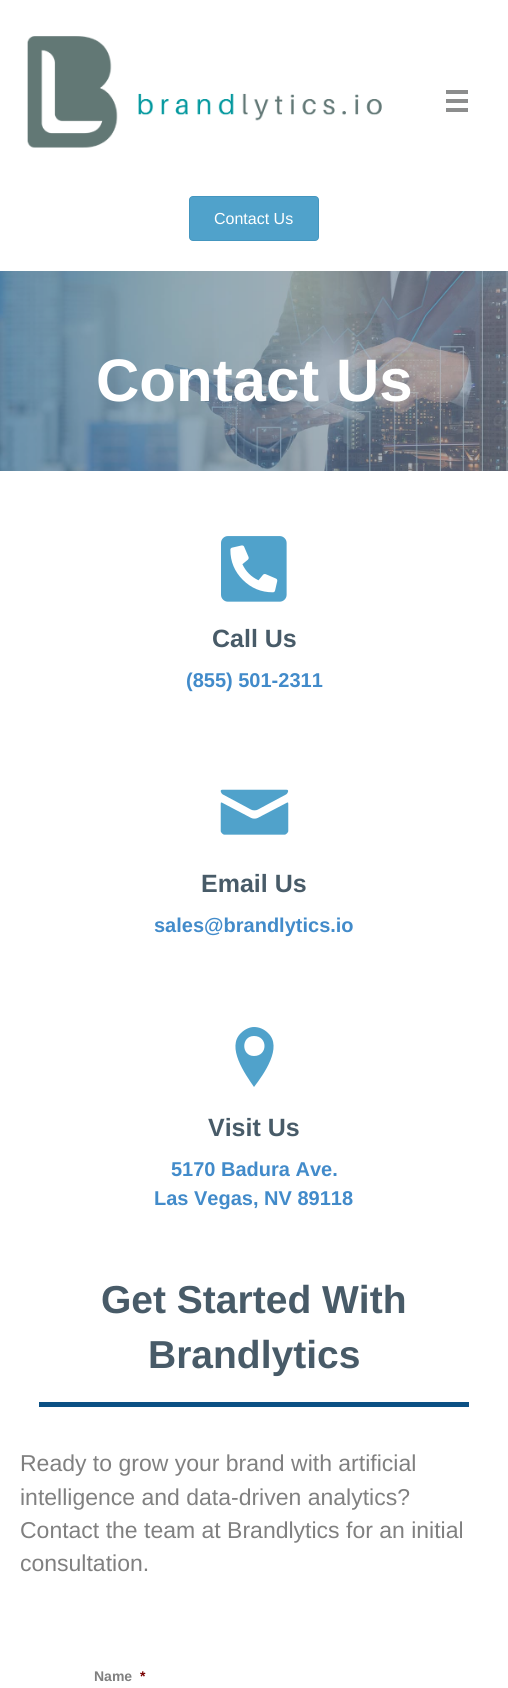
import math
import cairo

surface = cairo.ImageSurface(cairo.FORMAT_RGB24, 508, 1688)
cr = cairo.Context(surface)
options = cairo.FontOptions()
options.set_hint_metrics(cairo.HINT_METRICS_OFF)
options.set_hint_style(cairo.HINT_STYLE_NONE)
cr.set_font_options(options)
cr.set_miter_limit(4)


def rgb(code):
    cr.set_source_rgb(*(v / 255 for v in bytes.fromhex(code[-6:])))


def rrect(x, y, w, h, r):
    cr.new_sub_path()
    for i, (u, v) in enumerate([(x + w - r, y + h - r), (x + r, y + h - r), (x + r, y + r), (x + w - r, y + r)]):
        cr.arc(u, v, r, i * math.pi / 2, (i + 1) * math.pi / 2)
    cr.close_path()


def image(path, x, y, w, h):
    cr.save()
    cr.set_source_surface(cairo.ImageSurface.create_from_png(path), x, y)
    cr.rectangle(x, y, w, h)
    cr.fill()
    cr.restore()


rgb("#ffffff")
cr.paint()
image("img/1.png", 27, 36, 355, 112)
for x, y, w, h, color in [
    (446, 90, 22, 4, "#8c8d8d"),
    (446, 99, 22, 4, "#8c8d8d"),
    (446, 108, 22, 4, "#8c8d8d"),
]:
    rgb(color)
    cr.rectangle(x, y, w, h)
    cr.fill()
rgb("#50a2cb")
rrect(189.5, 196.5, 129, 44, 3.5)
cr.fill_preserve()
rgb("#4496bf")
cr.set_line_width(1)
cr.stroke()
image("img/2.png", 0, 271, 508, 200)
image("img/3.png", 221, 536, 66, 66)
image("img/4.png", 220, 789, 69, 46)
rgb("#50a2cb")
cr.new_path()
cr.move_to(254, 1027)
cr.curve_to(250, 1027, 245, 1029, 241, 1033)
cr.curve_to(226, 1047, 245, 1074, 254, 1087)
cr.curve_to(264, 1074, 283, 1047, 268, 1033)
cr.curve_to(264, 1029, 259, 1027, 254, 1027)
cr.close_path()
cr.move_to(254, 1056)
cr.curve_to(241, 1056, 241, 1036, 254, 1036)
cr.curve_to(268, 1036, 268, 1056, 254, 1056)
cr.close_path()
cr.fill()
rgb("#0b5084")
cr.rectangle(39, 1402, 430, 5)
cr.fill()
cr.select_font_face("Liberation Sans")
cr.set_font_size(16)
rgb("#ffffff")
cr.move_to(214, 224)
cr.show_text("Contact Us")
cr.select_font_face("Liberation Sans", cairo.FONT_SLANT_NORMAL, cairo.FONT_WEIGHT_BOLD)
cr.set_font_size(60)
cr.move_to(96, 401)
cr.show_text("Contact Us")
cr.set_font_size(25)
rgb("#485b68")
cr.move_to(212, 647)
cr.show_text("Call Us")
cr.set_font_size(20)
rgb("#428bca")
cr.move_to(186, 687)
cr.show_text("(855) 501-2311")
cr.set_font_size(25)
rgb("#485b68")
cr.move_to(201, 892)
cr.show_text("Email Us")
cr.set_font_size(20)
rgb("#428bca")
cr.move_to(154, 932)
cr.show_text("sales@brandlytics.io")
cr.set_font_size(25)
rgb("#485b68")
cr.move_to(208, 1136)
cr.show_text("Visit Us")
cr.set_font_size(20)
rgb("#428bca")
cr.move_to(171, 1176)
cr.show_text("5170 Badura Ave.")
cr.move_to(154, 1205)
cr.show_text("Las Vegas, NV 89118")
cr.set_font_size(39)
rgb("#485b68")
cr.move_to(101, 1313)
cr.show_text("Get Started With")
cr.move_to(148, 1368)
cr.show_text("Brandlytics")
cr.select_font_face("Liberation Sans")
cr.set_font_size(23)
rgb("#808080")
for x, y, s in [
    (20, 1471, "Ready to grow your brand with artificial"),
    (20, 1505, "intelligence and data-driven analytics?"),
    (20, 1538, "Contact the team at Brandlytics for an initial"),
    (20, 1571, "consultation."),
]:
    cr.move_to(x, y)
    cr.show_text(s)
cr.select_font_face("Liberation Sans", cairo.FONT_SLANT_NORMAL, cairo.FONT_WEIGHT_BOLD)
cr.set_font_size(14)
cr.move_to(94, 1681)
cr.show_text("Name")
rgb("#790000")
cr.move_to(140, 1681)
cr.show_text("*")
surface.write_to_png("page.png")
